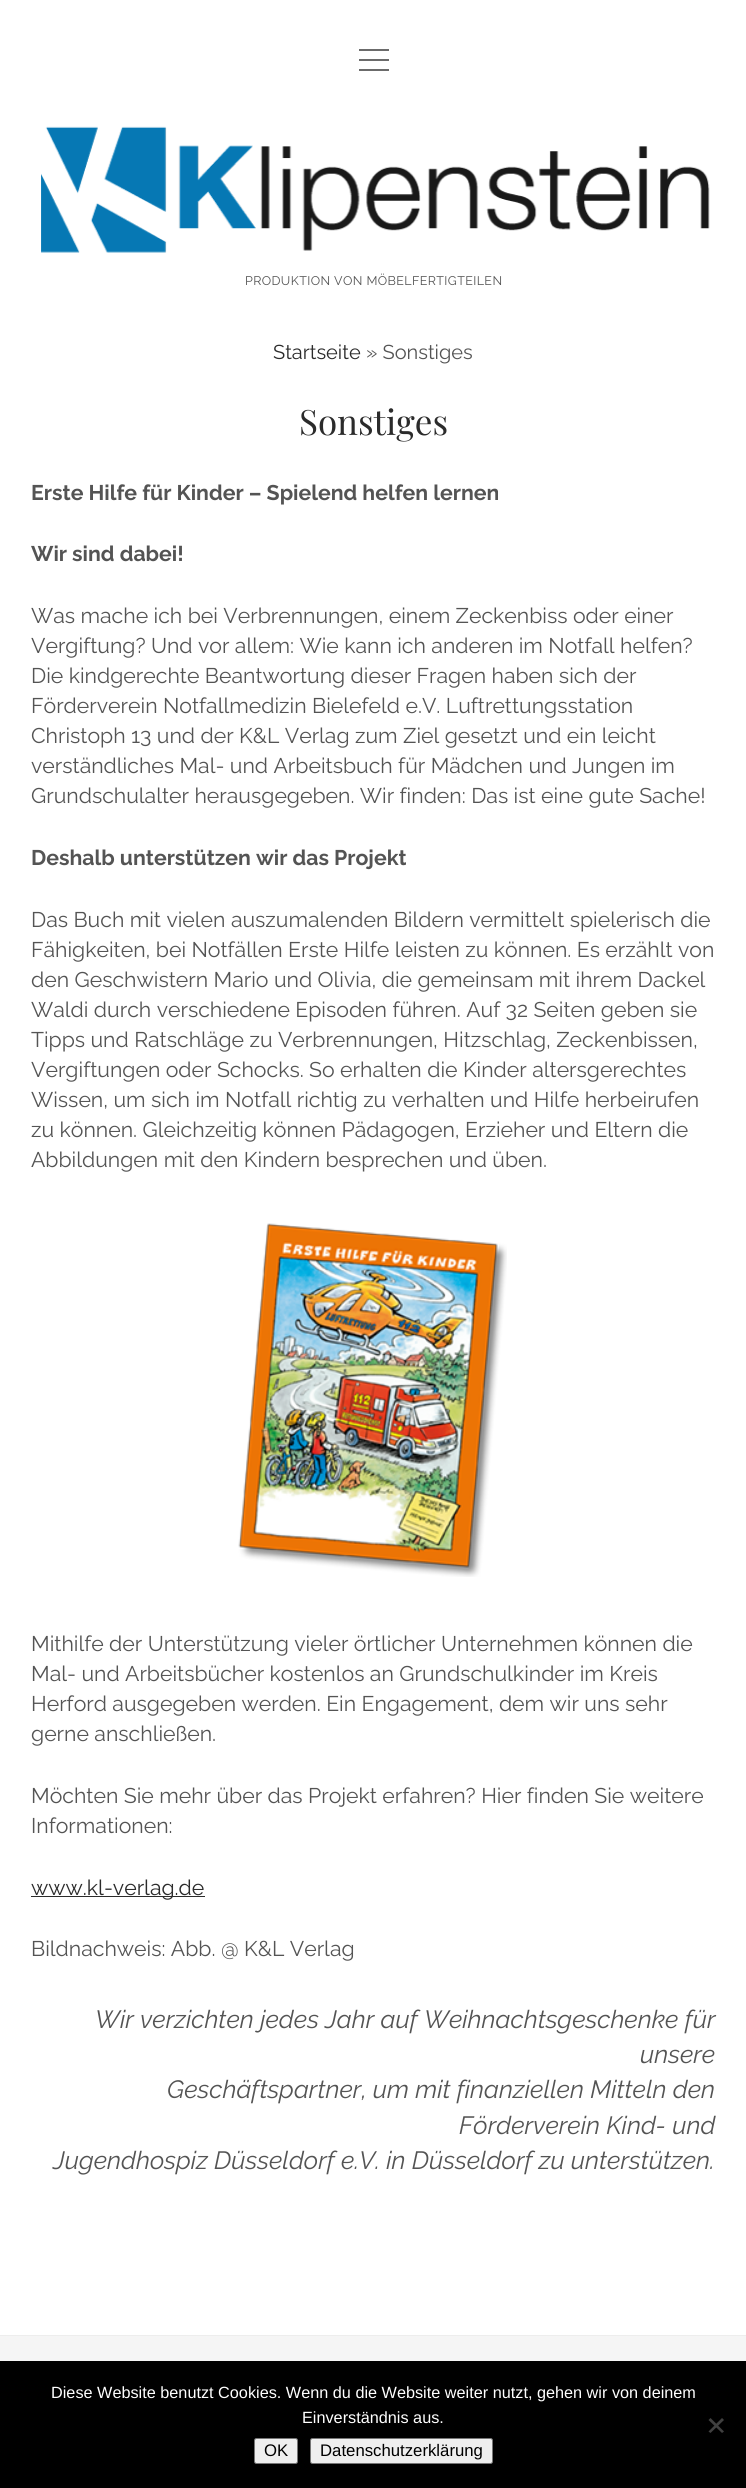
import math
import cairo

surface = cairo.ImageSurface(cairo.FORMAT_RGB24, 746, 2488)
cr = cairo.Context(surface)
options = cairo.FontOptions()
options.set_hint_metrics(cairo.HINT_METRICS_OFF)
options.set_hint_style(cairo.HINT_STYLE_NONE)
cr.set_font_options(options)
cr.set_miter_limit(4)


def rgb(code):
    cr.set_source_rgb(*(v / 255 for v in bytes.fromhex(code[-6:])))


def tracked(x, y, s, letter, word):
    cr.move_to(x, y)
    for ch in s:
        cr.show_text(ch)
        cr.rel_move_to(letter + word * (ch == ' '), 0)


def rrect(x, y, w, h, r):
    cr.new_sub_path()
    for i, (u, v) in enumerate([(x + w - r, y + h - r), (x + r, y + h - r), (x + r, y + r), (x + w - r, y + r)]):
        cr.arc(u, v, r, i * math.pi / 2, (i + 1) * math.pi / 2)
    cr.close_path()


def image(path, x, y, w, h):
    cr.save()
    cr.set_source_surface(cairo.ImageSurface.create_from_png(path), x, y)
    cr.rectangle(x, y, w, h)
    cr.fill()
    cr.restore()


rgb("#ffffff")
cr.paint()
for x, y, w, h, color in [
    (359, 49, 30, 2, "#6b6b6b"),
    (359, 59, 30, 2, "#6b6b6b"),
    (359, 69, 30, 2, "#6b6b6b"),
]:
    rgb(color)
    cr.rectangle(x, y, w, h)
    cr.fill()
image("img/1.png", 41, 126, 669, 127)
image("img/2.png", 238, 1223, 269, 354)
for x, y, w, h, color in [
    (31, 1896, 174, 1, "#2b2b2b"),
    (0, 2336, 746, 25, "#f5f5f5"),
    (0, 2335, 746, 1, "#ededed"),
    (0, 2361, 746, 127, "#000000"),
]:
    rgb(color)
    cr.rectangle(x, y, w, h)
    cr.fill()
rgb("#404040")
cr.new_path()
cr.move_to(722, 2418)
cr.line_to(724, 2420)
cr.line_to(710.5, 2433)
cr.line_to(708.5, 2431.5)
cr.close_path()
cr.fill()
cr.new_path()
cr.move_to(708.5, 2420)
cr.line_to(710.5, 2418)
cr.line_to(724, 2431.5)
cr.line_to(722, 2433)
cr.close_path()
cr.fill()
rgb("#efefef")
rrect(254.5, 2438.5, 43, 25, 2)
cr.fill_preserve()
rgb("#767676")
cr.set_line_width(1)
cr.stroke()
rgb("#efefef")
rrect(310.5, 2438.5, 182, 25, 2)
cr.fill_preserve()
rgb("#767676")
cr.stroke()
cr.select_font_face("Raleway")
cr.set_font_size(12.5)
rgb("#545454")
tracked(245, 285, "PRODUKTION VON MÖBELFERTIGTEILEN", 0.4, 0)
cr.set_font_size(20)
rgb("#2b2b2b")
cr.move_to(273, 359)
cr.show_text("Startseite")
rgb("#545454")
cr.move_to(366, 359)
cr.show_text("» Sonstiges")
cr.select_font_face("Playfair Display")
cr.set_font_size(35)
rgb("#2b2b2b")
cr.move_to(299, 435)
cr.show_text("Sonstiges")
cr.select_font_face("Raleway", cairo.FONT_SLANT_NORMAL, cairo.FONT_WEIGHT_BOLD)
cr.set_font_size(21.25)
rgb("#545454")
cr.move_to(31, 500)
cr.show_text("Erste Hilfe für Kinder – Spielend helfen lernen")
cr.move_to(31, 561)
cr.show_text("Wir sind dabei!")
cr.select_font_face("Raleway")
for x, y, s in [
    (31, 623, "Was mache ich bei Verbrennungen, einem Zeckenbiss oder einer"),
    (31, 653, "Vergiftung? Und vor allem: Wie kann ich anderen im Notfall helfen?"),
    (31, 683, "Die kindgerechte Beantwortung dieser Fragen haben sich der"),
    (31, 713, "Förderverein Notfallmedizin Bielefeld e.V. Luftrettungsstation"),
    (31, 743, "Christoph 13 und der K&L Verlag zum Ziel gesetzt und ein leicht"),
    (31, 773, "verständliches Mal- und Arbeitsbuch für Mädchen und Jungen im"),
    (31, 803, "Grundschulalter herausgegeben. Wir finden: Das ist eine gute Sache!"),
]:
    cr.move_to(x, y)
    cr.show_text(s)
cr.select_font_face("Raleway", cairo.FONT_SLANT_NORMAL, cairo.FONT_WEIGHT_BOLD)
cr.move_to(31, 865)
cr.show_text("Deshalb unterstützen wir das Projekt")
cr.select_font_face("Raleway")
for x, y, s in [
    (31, 927, "Das Buch mit vielen auszumalenden Bildern vermittelt spielerisch die"),
    (31, 957, "Fähigkeiten, bei Notfällen Erste Hilfe leisten zu können. Es erzählt von"),
    (31, 987, "den Geschwistern Mario und Olivia, die gemeinsam mit ihrem Dackel"),
    (31, 1017, "Waldi durch verschiedene Episoden führen. Auf 32 Seiten geben sie"),
    (31, 1047, "Tipps und Ratschläge zu Verbrennungen, Hitzschlag, Zeckenbissen,"),
    (31, 1077, "Vergiftungen oder Schocks. So erhalten die Kinder altersgerechtes"),
    (31, 1107, "Wissen, um sich im Notfall richtig zu verhalten und Hilfe herbeirufen"),
    (31, 1137, "zu können. Gleichzeitig können Pädagogen, Erzieher und Eltern die"),
    (31, 1167, "Abbildungen mit den Kindern besprechen und üben."),
    (31, 1651, "Mithilfe der Unterstützung vieler örtlicher Unternehmen können die"),
    (31, 1681, "Mal- und Arbeitsbücher kostenlos an Grundschulkinder im Kreis"),
    (31, 1711, "Herford ausgegeben werden. Ein Engagement, dem wir uns sehr"),
    (31, 1741, "gerne anschließen."),
    (31, 1803, "Möchten Sie mehr über das Projekt erfahren? Hier finden Sie weitere"),
    (31, 1833, "Informationen:"),
]:
    cr.move_to(x, y)
    cr.show_text(s)
rgb("#2b2b2b")
cr.move_to(31, 1895)
cr.show_text("www.kl-verlag.de")
rgb("#545454")
cr.move_to(31, 1956)
cr.show_text("Bildnachweis: Abb. @ K&L Verlag")
cr.select_font_face("Raleway Thin", cairo.FONT_SLANT_ITALIC)
cr.set_font_size(25)
for x, y, s in [
    (95, 2028, "Wir verzichten jedes Jahr auf Weihnachtsgeschenke für"),
    (640, 2063, "unsere"),
    (167, 2098, "Geschäftspartner, um mit finanziellen Mitteln den"),
    (459, 2134, "Förderverein Kind- und"),
    (53, 2169, "Jugendhospiz Düsseldorf e.V. in Düsseldorf zu unterstützen."),
]:
    cr.move_to(x, y)
    cr.show_text(s)
cr.select_font_face("Liberation Sans")
cr.set_font_size(16.25)
rgb("#ffffff")
cr.move_to(51, 2398)
cr.show_text("Diese Website benutzt Cookies. Wenn du die Website weiter nutzt, gehen wir von deinem")
cr.move_to(302, 2423)
cr.show_text("Einverständnis aus.")
cr.set_font_size(16.75)
rgb("#000000")
cr.move_to(264, 2456)
cr.show_text("OK")
cr.move_to(320, 2456)
cr.show_text("Datenschutzerklärung")
surface.write_to_png("page.png")
